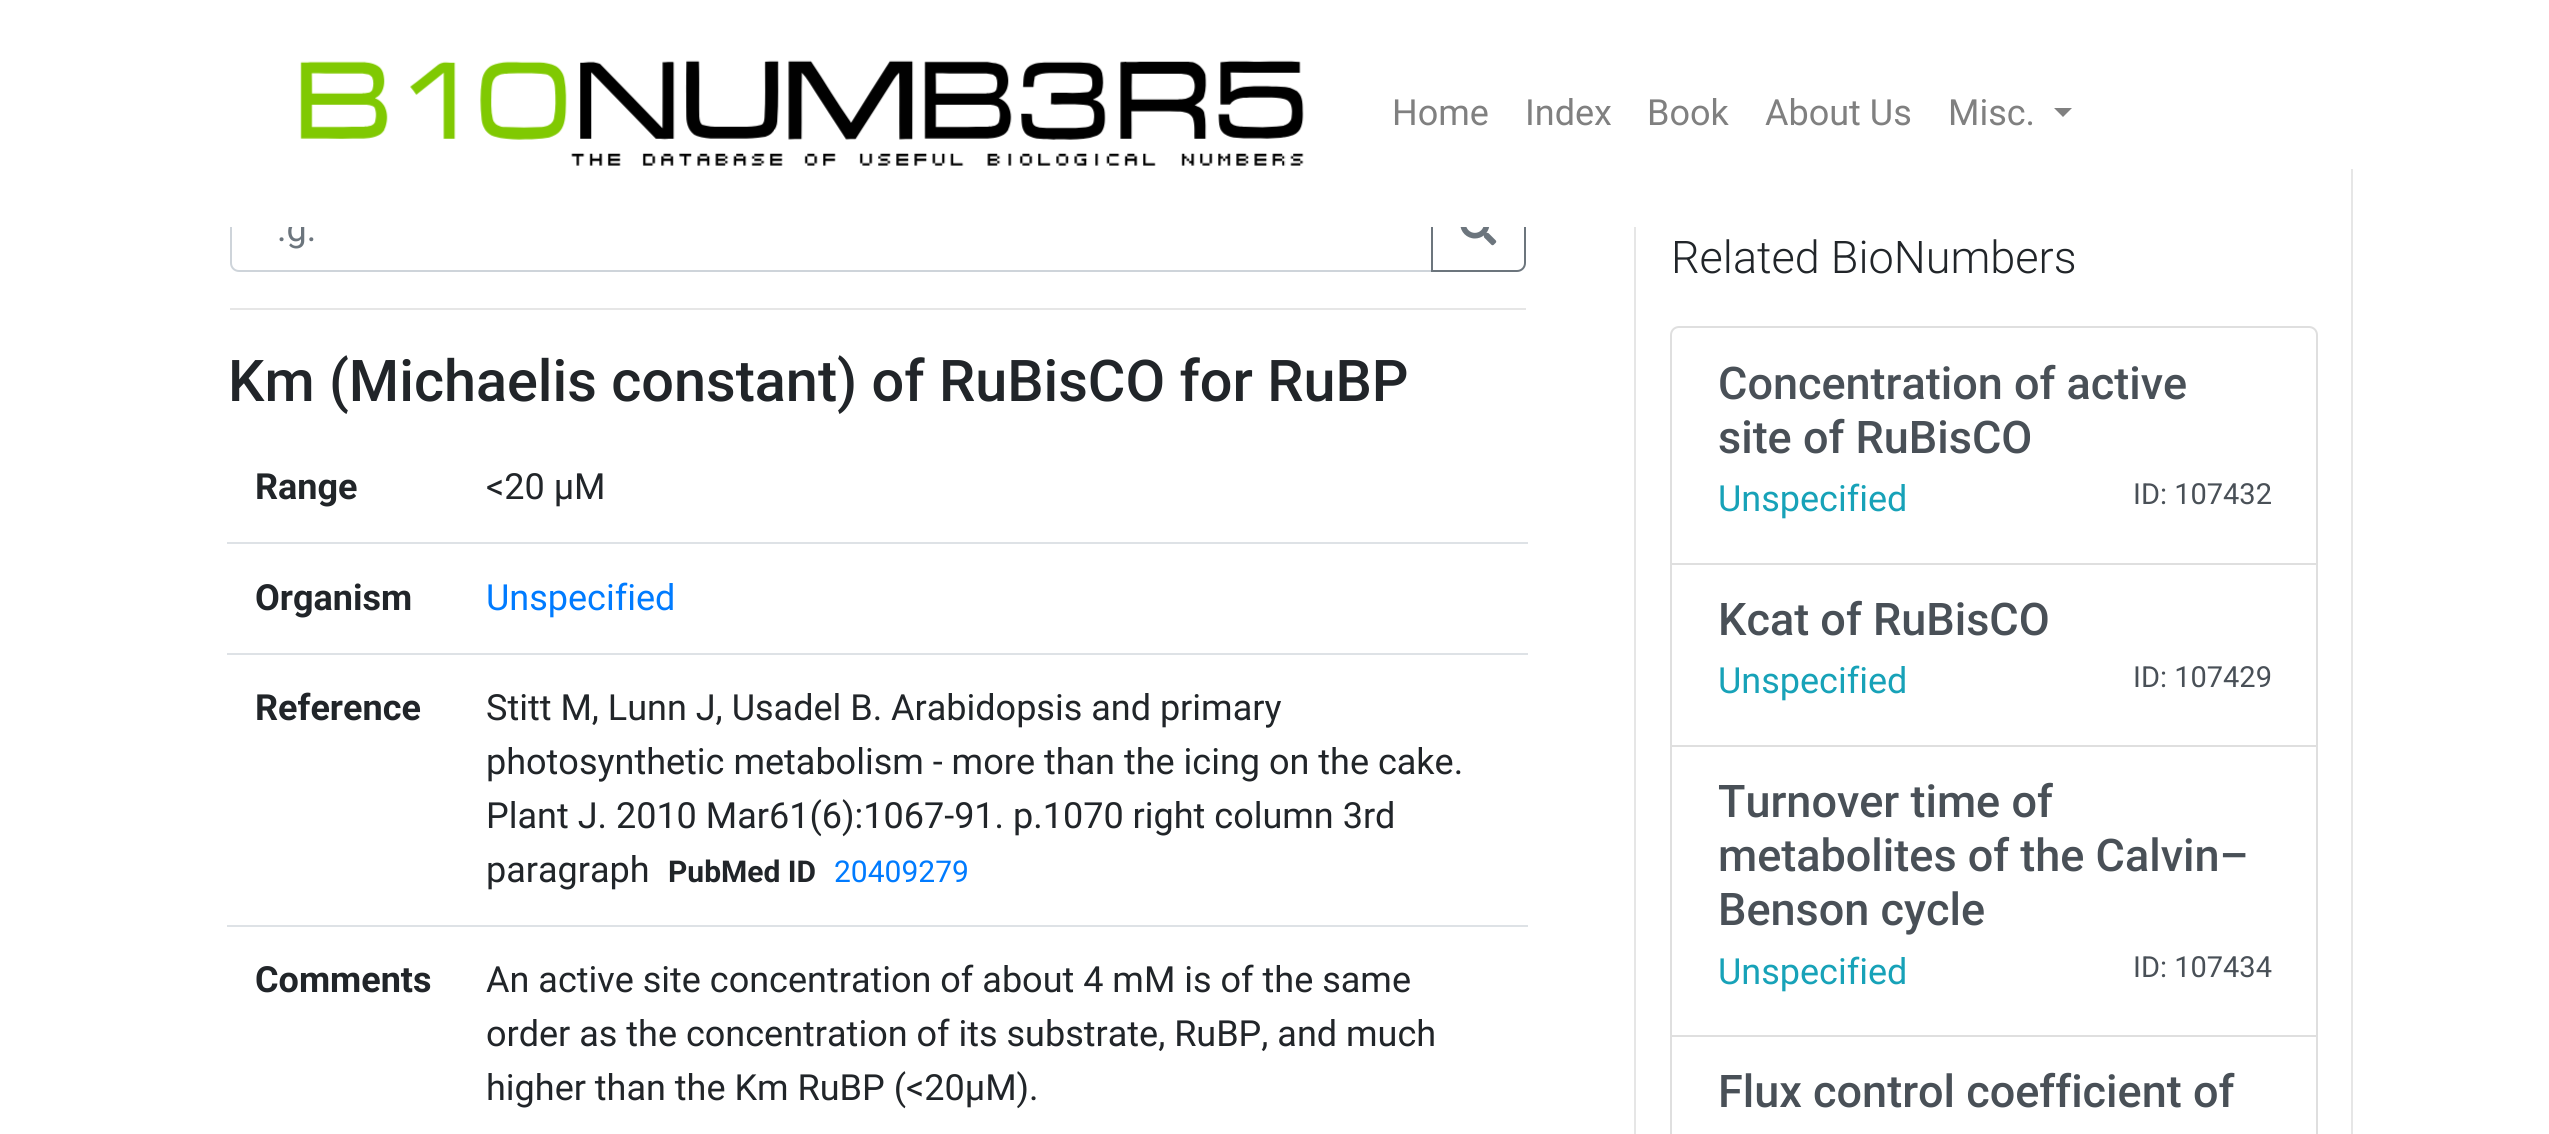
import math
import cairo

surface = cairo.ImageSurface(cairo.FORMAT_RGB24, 2549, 1134)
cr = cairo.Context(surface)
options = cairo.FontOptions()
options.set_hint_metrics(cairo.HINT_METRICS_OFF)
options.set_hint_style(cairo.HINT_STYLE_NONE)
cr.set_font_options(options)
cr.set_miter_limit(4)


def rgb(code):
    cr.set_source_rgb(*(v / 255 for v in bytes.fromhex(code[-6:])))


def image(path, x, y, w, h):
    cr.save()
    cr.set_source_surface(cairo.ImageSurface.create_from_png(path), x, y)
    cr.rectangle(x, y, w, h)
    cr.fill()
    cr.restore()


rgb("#ffffff")
cr.paint()
image("img/1.png", 300, 60, 1004, 106)
rgb("#808080")
cr.new_path()
cr.move_to(2054, 108)
cr.line_to(2072, 108)
cr.line_to(2063, 117)
cr.close_path()
cr.fill()
cr.new_path()
cr.move_to(239, 188)
cr.line_to(1432, 188)
cr.line_to(1432, 271)
cr.line_to(239, 271)
cr.curve_to(234.5, 271, 231, 267.5, 231, 263)
cr.line_to(231, 196)
cr.curve_to(231, 191.5, 234.5, 188, 239, 188)
cr.close_path()
rgb("#ced4da")
cr.stroke()
cr.new_path()
cr.move_to(1432, 188)
cr.line_to(1517, 188)
cr.curve_to(1521.5, 188, 1525, 191.5, 1525, 196)
cr.line_to(1525, 263)
cr.curve_to(1525, 267.5, 1521.5, 271, 1517, 271)
cr.line_to(1432, 271)
cr.close_path()
rgb("#6c757d")
cr.stroke()
image("img/2.png", 1460, 227, 37, 19)
for x, y, w, h, color in [
    (230, 308, 1296, 2, "#e6e6e6"),
    (227, 542, 1301, 2, "#dee2e6"),
    (227, 653, 1301, 2, "#dee2e6"),
    (227, 925, 1301, 2, "#dee2e6"),
    (2351, 169, 2, 965, "#e6e6e6"),
    (1634, 227, 2, 907, "#e6e6e6"),
]:
    rgb(color)
    cr.rectangle(x, y, w, h)
    cr.fill()
cr.new_path()
cr.move_to(1679, 327)
cr.line_to(2309, 327)
cr.curve_to(2313.5, 327, 2317, 330.5, 2317, 335)
cr.line_to(2317, 564)
cr.line_to(1671, 564)
cr.line_to(1671, 335)
cr.curve_to(1671, 330.5, 1674.5, 327, 1679, 327)
cr.close_path()
rgb("#dfdfdf")
cr.stroke()
cr.rectangle(1671, 564, 646, 182)
cr.stroke()
cr.rectangle(1671, 746, 646, 290)
cr.stroke()
cr.rectangle(1671, 1036, 646, 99)
cr.stroke()
cr.select_font_face("Roboto")
cr.set_font_size(36)
rgb("#808080")
for x, y, s in [
    (1392, 125, "Home"),
    (1525, 125, "Index"),
    (1647, 125, "Book"),
    (1765, 125, "About Us"),
    (1948, 125, "Misc."),
]:
    cr.move_to(x, y)
    cr.show_text(s)
rgb("#6c757d")
cr.move_to(277, 241)
cr.show_text(".g.")
rgb("#ffffff")
cr.rectangle(230, 187, 1296, 40)
cr.fill()
cr.select_font_face("Roboto Medium")
cr.set_font_size(57.6)
rgb("#212529")
cr.move_to(228, 401)
cr.show_text("Km (Michaelis constant) of RuBisCO for RuBP")
cr.select_font_face("Roboto", cairo.FONT_SLANT_NORMAL, cairo.FONT_WEIGHT_BOLD)
cr.set_font_size(36)
cr.move_to(255, 499)
cr.show_text("Range")
cr.select_font_face("Roboto")
cr.move_to(486, 499)
cr.show_text("<20 μM")
cr.select_font_face("Roboto", cairo.FONT_SLANT_NORMAL, cairo.FONT_WEIGHT_BOLD)
cr.move_to(255, 610)
cr.show_text("Organism")
cr.select_font_face("Roboto")
rgb("#007bff")
cr.move_to(486, 610)
cr.show_text("Unspecified")
cr.select_font_face("Roboto", cairo.FONT_SLANT_NORMAL, cairo.FONT_WEIGHT_BOLD)
rgb("#212529")
cr.move_to(255, 720)
cr.show_text("Reference")
cr.select_font_face("Roboto")
for x, y, s in [
    (486, 720, "Stitt M, Lunn J, Usadel B. Arabidopsis and primary"),
    (486, 774, "photosynthetic metabolism - more than the icing on the cake."),
    (486, 828, "Plant J. 2010 Mar61(6):1067-91. p.1070 right column 3rd"),
    (486, 882, "paragraph"),
]:
    cr.move_to(x, y)
    cr.show_text(s)
cr.select_font_face("Roboto", cairo.FONT_SLANT_NORMAL, cairo.FONT_WEIGHT_BOLD)
cr.set_font_size(30)
cr.move_to(668, 882)
cr.show_text("PubMed ID")
cr.select_font_face("Roboto")
rgb("#007bff")
cr.move_to(834, 882)
cr.show_text("20409279")
cr.select_font_face("Roboto", cairo.FONT_SLANT_NORMAL, cairo.FONT_WEIGHT_BOLD)
cr.set_font_size(36)
rgb("#212529")
cr.move_to(255, 992)
cr.show_text("Comments")
cr.select_font_face("Roboto")
for x, y, s in [
    (486, 992, "An active site concentration of about 4 mM is of the same"),
    (486, 1046, "order as the concentration of its substrate, RuBP, and much"),
    (486, 1100, "higher than the Km RuBP (<20µM)."),
]:
    cr.move_to(x, y)
    cr.show_text(s)
cr.select_font_face("Roboto Light")
cr.set_font_size(45)
cr.move_to(1671, 273)
cr.show_text("Related BioNumbers")
cr.select_font_face("Roboto Medium")
rgb("#495057")
cr.move_to(1718, 399)
cr.show_text("Concentration of active")
cr.move_to(1718, 453)
cr.show_text("site of RuBisCO")
cr.select_font_face("Roboto")
cr.set_font_size(36)
rgb("#17a2b8")
cr.move_to(1718, 511)
cr.show_text("Unspecified")
cr.set_font_size(29)
rgb("#495057")
cr.move_to(2133, 504)
cr.show_text("ID: 107432")
cr.select_font_face("Roboto Medium")
cr.set_font_size(45)
cr.move_to(1718, 635)
cr.show_text("Kcat of RuBisCO")
cr.select_font_face("Roboto")
cr.set_font_size(36)
rgb("#17a2b8")
cr.move_to(1718, 693)
cr.show_text("Unspecified")
cr.set_font_size(29)
rgb("#495057")
cr.move_to(2133, 687)
cr.show_text("ID: 107429")
cr.select_font_face("Roboto Medium")
cr.set_font_size(45)
for x, y, s in [
    (1718, 817, "Turnover time of"),
    (1718, 871, "metabolites of the Calvin–"),
    (1718, 925, "Benson cycle"),
]:
    cr.move_to(x, y)
    cr.show_text(s)
cr.select_font_face("Roboto")
cr.set_font_size(36)
rgb("#17a2b8")
cr.move_to(1718, 984)
cr.show_text("Unspecified")
cr.set_font_size(29)
rgb("#495057")
cr.move_to(2133, 977)
cr.show_text("ID: 107434")
cr.select_font_face("Roboto Medium")
cr.set_font_size(45)
cr.move_to(1718, 1107)
cr.show_text("Flux control coefficient of")
surface.write_to_png("page.png")
